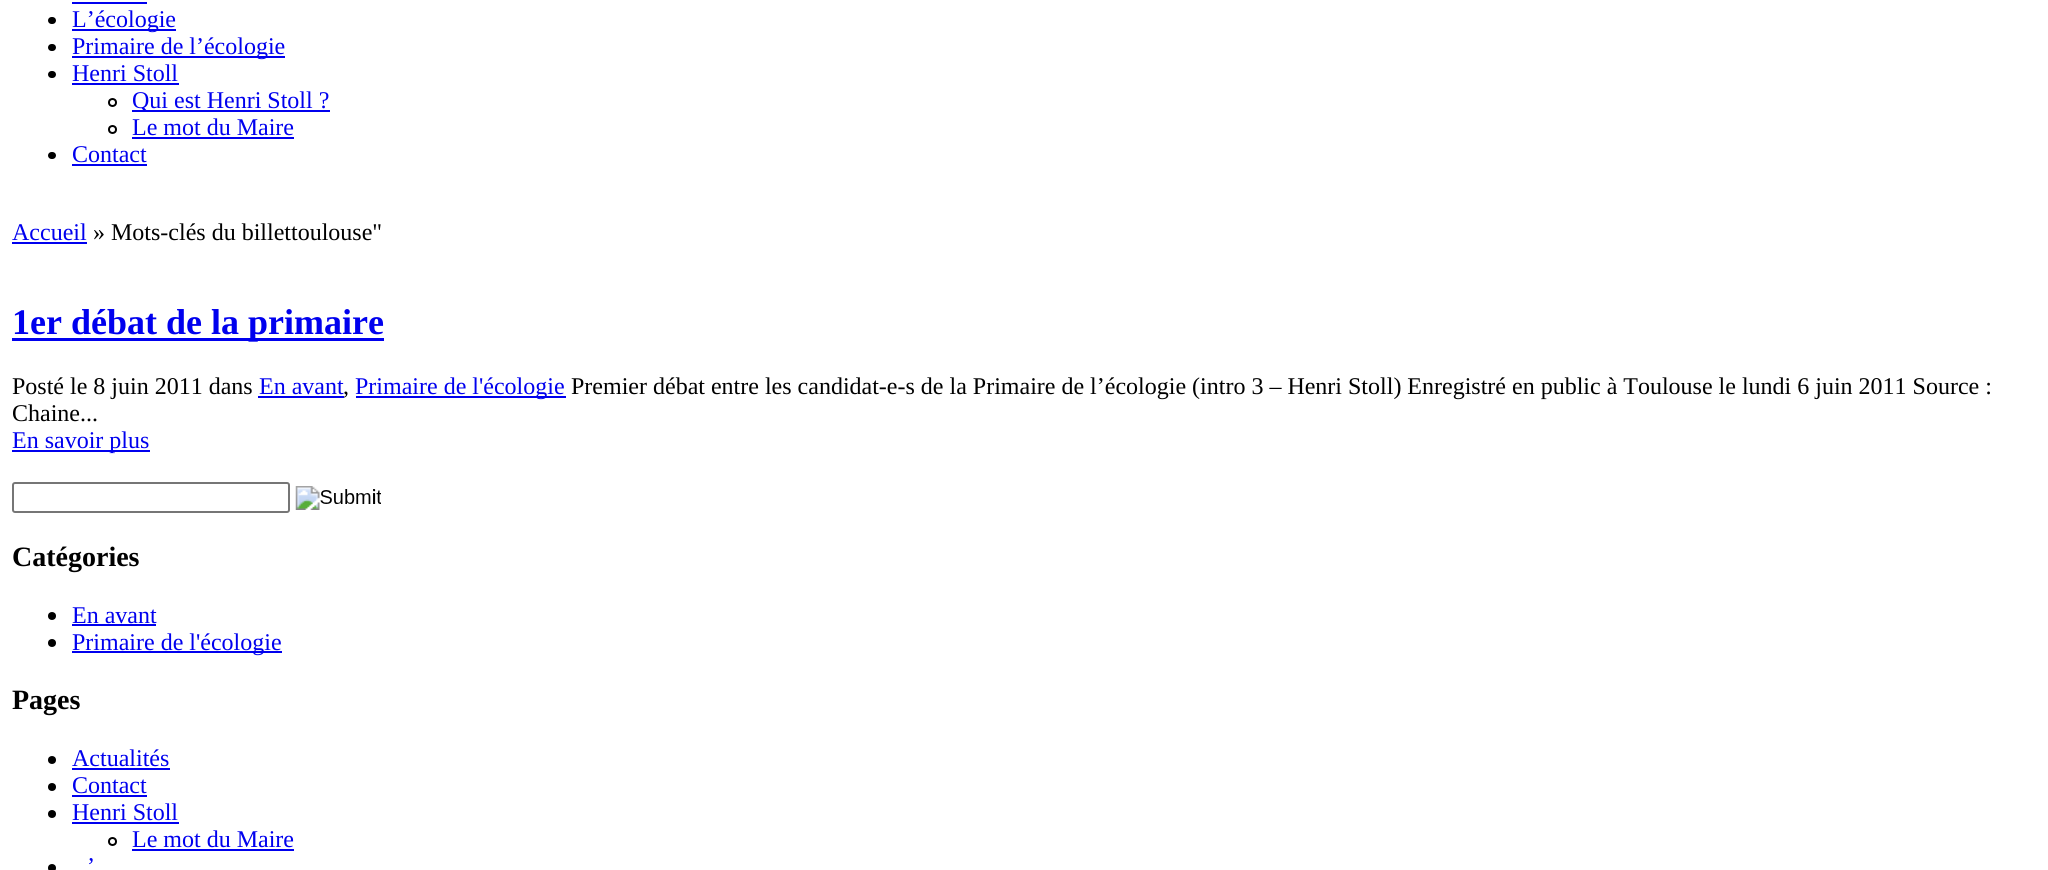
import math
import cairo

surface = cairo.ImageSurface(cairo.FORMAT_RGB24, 2048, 870)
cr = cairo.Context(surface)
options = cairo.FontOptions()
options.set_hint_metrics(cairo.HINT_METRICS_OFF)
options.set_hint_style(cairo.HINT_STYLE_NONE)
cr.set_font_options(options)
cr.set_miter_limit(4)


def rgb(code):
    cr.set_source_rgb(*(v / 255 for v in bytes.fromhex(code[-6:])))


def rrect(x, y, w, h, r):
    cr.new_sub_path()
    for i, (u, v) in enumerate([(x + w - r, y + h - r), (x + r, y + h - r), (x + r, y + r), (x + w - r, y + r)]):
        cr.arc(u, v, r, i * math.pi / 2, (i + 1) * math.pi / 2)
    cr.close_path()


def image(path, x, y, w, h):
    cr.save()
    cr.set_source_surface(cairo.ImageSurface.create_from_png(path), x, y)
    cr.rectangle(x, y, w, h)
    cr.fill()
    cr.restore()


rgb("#ffffff")
cr.paint()
rgb("#0000ee")
cr.rectangle(72, 2, 75, 2)
cr.fill()
rgb("#000000")
rrect(48, 17, 8, 7, 3.5)
cr.fill()
rgb("#0000ee")
cr.rectangle(72, 29, 104, 2)
cr.fill()
rgb("#000000")
rrect(48, 44, 8, 7, 3.5)
cr.fill()
rgb("#0000ee")
cr.rectangle(72, 56, 213, 2)
cr.fill()
rgb("#000000")
rrect(48, 71, 8, 7, 3.5)
cr.fill()
rgb("#0000ee")
cr.rectangle(72, 83, 107, 2)
cr.fill()
cr.arc(112.5, 102.5, 3.5, 0, 2 * math.pi)
rgb("#000000")
cr.stroke()
rgb("#0000ee")
cr.rectangle(132, 110, 198, 2)
cr.fill()
cr.arc(112.5, 129.5, 3.5, 0, 2 * math.pi)
rgb("#000000")
cr.stroke()
rgb("#0000ee")
cr.rectangle(132, 137, 162, 2)
cr.fill()
rgb("#000000")
rrect(48, 152, 8, 7, 3.5)
cr.fill()
for x, y, w, h, color in [
    (72, 164, 75, 2, "#0000ee"),
    (12, 242, 75, 2, "#0000ee"),
    (12, 338, 372, 3, "#0000ee"),
    (258, 396, 86, 2, "#0000ee"),
    (356, 396, 210, 2, "#0000ee"),
    (12, 450, 138, 2, "#0000ee"),
]:
    rgb(color)
    cr.rectangle(x, y, w, h)
    cr.fill()
rrect(13, 483, 276, 29, 2)
rgb("#767676")
cr.stroke()
image("img/1.png", 295, 486, 86, 24)
rgb("#000000")
cr.arc(52, 616, 4, 0, 2 * math.pi)
cr.fill()
rgb("#0000ee")
cr.rectangle(72, 624, 84, 2)
cr.fill()
rgb("#000000")
cr.arc(52, 643, 4, 0, 2 * math.pi)
cr.fill()
rgb("#0000ee")
cr.rectangle(72, 651, 210, 2)
cr.fill()
rgb("#000000")
cr.arc(52, 760, 4, 0, 2 * math.pi)
cr.fill()
rgb("#0000ee")
cr.rectangle(72, 768, 98, 2)
cr.fill()
rgb("#000000")
cr.arc(52, 787, 4, 0, 2 * math.pi)
cr.fill()
rgb("#0000ee")
cr.rectangle(72, 795, 75, 2)
cr.fill()
rgb("#000000")
cr.arc(52, 814, 4, 0, 2 * math.pi)
cr.fill()
rgb("#0000ee")
cr.rectangle(72, 822, 107, 2)
cr.fill()
cr.arc(112.5, 841.5, 3.5, 0, 2 * math.pi)
rgb("#000000")
cr.stroke()
rgb("#0000ee")
cr.rectangle(132, 849, 162, 2)
cr.fill()
rgb("#000000")
cr.arc(52, 868, 4, 0, 2 * math.pi)
cr.fill()
cr.select_font_face("Liberation Serif")
cr.set_font_size(24)
rgb("#0000ee")
for x, y, s in [
    (72, 27, "L’écologie"),
    (72, 54, "Primaire de l’écologie"),
    (72, 81, "Henri Stoll"),
    (132, 108, "Qui est Henri Stoll ?"),
    (132, 135, "Le mot du Maire"),
    (72, 162, "Contact"),
    (12, 240, "Accueil"),
]:
    cr.move_to(x, y)
    cr.show_text(s)
rgb("#000000")
cr.move_to(93, 240)
cr.show_text("» Mots-clés du billettoulouse\"")
cr.select_font_face("Liberation Serif", cairo.FONT_SLANT_NORMAL, cairo.FONT_WEIGHT_BOLD)
cr.set_font_size(36)
rgb("#0000ee")
cr.move_to(12, 334)
cr.show_text("1er débat de la primaire")
cr.select_font_face("Liberation Serif")
cr.set_font_size(24)
rgb("#000000")
cr.move_to(12, 394)
cr.show_text("Posté le 8 juin 2011 dans")
rgb("#0000ee")
cr.move_to(259, 394)
cr.show_text("En avant")
rgb("#000000")
cr.move_to(343, 394)
cr.show_text(",")
rgb("#0000ee")
cr.move_to(355, 394)
cr.show_text("Primaire de l'écologie")
rgb("#000000")
cr.move_to(571, 394)
cr.show_text("Premier débat entre les candidat-e-s de la Primaire de l’écologie (intro 3 – Henri Stoll) Enregistré en public à Toulouse le lundi 6 juin 2011 Source :")
cr.move_to(12, 421)
cr.show_text("Chaine...")
rgb("#0000ee")
cr.move_to(12, 448)
cr.show_text("En savoir plus")
cr.select_font_face("Liberation Sans")
cr.set_font_size(20)
rgb("#000000")
cr.move_to(372, 504)
cr.show_text("i")
cr.select_font_face("Liberation Serif", cairo.FONT_SLANT_NORMAL, cairo.FONT_WEIGHT_BOLD)
cr.set_font_size(28)
cr.move_to(12, 566)
cr.show_text("Catégories")
cr.select_font_face("Liberation Serif")
cr.set_font_size(24)
rgb("#0000ee")
cr.move_to(72, 623)
cr.show_text("En avant")
cr.move_to(72, 650)
cr.show_text("Primaire de l'écologie")
cr.select_font_face("Liberation Serif", cairo.FONT_SLANT_NORMAL, cairo.FONT_WEIGHT_BOLD)
cr.set_font_size(28)
rgb("#000000")
cr.move_to(12, 709)
cr.show_text("Pages")
cr.select_font_face("Liberation Serif")
cr.set_font_size(24)
rgb("#0000ee")
for x, y, s in [
    (72, 766, "Actualités"),
    (72, 793, "Contact"),
    (72, 820, "Henri Stoll"),
    (132, 847, "Le mot du Maire"),
    (87, 874, "’"),
]:
    cr.move_to(x, y)
    cr.show_text(s)
surface.write_to_png("page.png")
